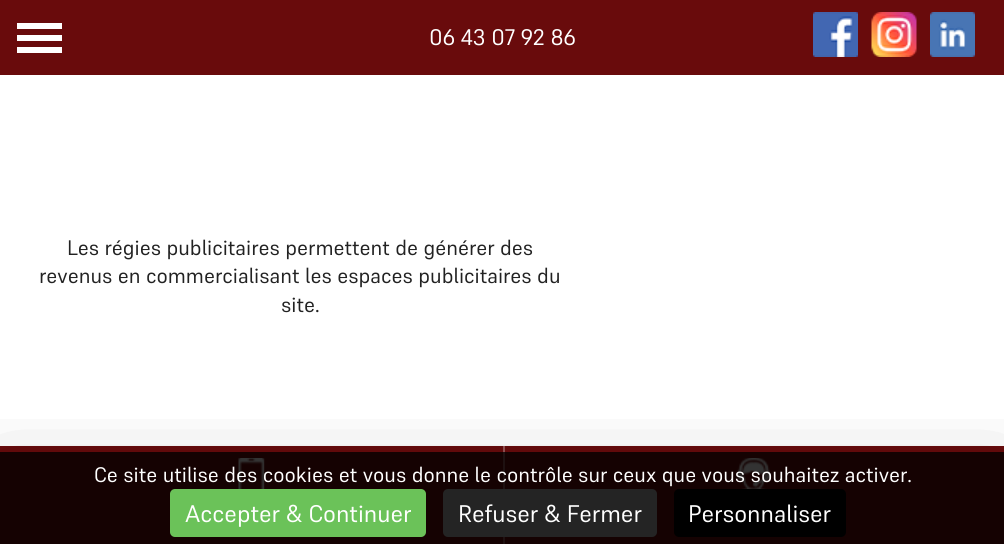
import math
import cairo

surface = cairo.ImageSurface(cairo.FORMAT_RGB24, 1004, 544)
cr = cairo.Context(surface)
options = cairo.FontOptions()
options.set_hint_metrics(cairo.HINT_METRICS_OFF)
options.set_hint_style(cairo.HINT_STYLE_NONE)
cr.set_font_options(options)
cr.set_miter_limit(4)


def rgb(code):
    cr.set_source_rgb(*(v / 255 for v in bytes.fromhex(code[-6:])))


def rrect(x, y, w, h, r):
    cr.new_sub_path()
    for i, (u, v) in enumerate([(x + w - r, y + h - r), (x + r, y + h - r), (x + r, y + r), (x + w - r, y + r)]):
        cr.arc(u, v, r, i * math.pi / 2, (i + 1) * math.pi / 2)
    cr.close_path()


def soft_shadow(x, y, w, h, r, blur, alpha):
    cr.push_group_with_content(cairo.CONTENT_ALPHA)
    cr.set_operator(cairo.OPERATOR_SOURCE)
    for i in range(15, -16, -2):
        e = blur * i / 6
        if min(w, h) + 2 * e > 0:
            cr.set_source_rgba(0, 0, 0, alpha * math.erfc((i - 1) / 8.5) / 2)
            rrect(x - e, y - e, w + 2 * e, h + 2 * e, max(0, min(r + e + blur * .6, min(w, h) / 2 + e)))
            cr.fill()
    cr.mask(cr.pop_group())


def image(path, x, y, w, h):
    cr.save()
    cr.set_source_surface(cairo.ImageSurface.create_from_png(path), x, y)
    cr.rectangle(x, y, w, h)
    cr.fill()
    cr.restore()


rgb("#ffffff")
cr.paint()
for x, y, w, h, color in [
    (0, 0, 1004, 75, "#690b0c"),
    (17, 23, 45, 6, "#ffffff"),
    (17, 35, 45, 6, "#ffffff"),
    (17, 47, 45, 6, "#ffffff"),
]:
    rgb(color)
    cr.rectangle(x, y, w, h)
    cr.fill()
image("img/1.png", 813, 12, 45, 45)
image("img/2.png", 871, 12, 46, 45)
image("img/3.png", 930, 12, 45, 45)
rgb("#690b0c")
cr.rectangle(0, 446, 1004, 6)
cr.fill()
rgb("#150202")
cr.rectangle(0, 452, 1004, 92)
cr.fill()
image("img/4.png", 238, 458, 27, 31)
rgb("#965455")
cr.rectangle(503, 446, 2, 6)
cr.fill()
rgb("#1e1111")
cr.rectangle(503, 452, 2, 92)
cr.fill()
image("img/5.png", 736, 458, 36, 31)
cr.save()
cr.rectangle(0, 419, 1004, 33)
cr.clip()
rgb("#000000")
soft_shadow(0, 482, 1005, 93, 0, 45, 0.25)
cr.restore()
rgb("#6bc259")
rrect(170, 489, 256, 48, 5)
cr.fill()
rgb("#242424")
rrect(443, 489, 214, 48, 5)
cr.fill()
rgb("#000000")
rrect(674, 489, 172, 48, 5)
cr.fill()
cr.select_font_face("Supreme")
cr.set_font_size(22.5)
rgb("#ffffff")
cr.move_to(429, 45)
cr.show_text("06 43 07 92 86")
cr.set_font_size(21)
rgb("#222222")
for x, y, s in [
    (67, 255, "Les régies publicitaires permettent de générer des"),
    (39, 283, "revenus en commercialisant les espaces publicitaires du"),
    (281, 312, "site."),
]:
    cr.move_to(x, y)
    cr.show_text(s)
rgb("#ffffff")
cr.move_to(94, 482)
cr.show_text("Ce site utilise des cookies et vous donne le contrôle sur ceux que vous souhaitez activer.")
cr.set_font_size(24)
for x, y, s in [
    (185, 522, "Accepter & Continuer"),
    (458, 522, "Refuser & Fermer"),
    (688, 522, "Personnaliser"),
]:
    cr.move_to(x, y)
    cr.show_text(s)
surface.write_to_png("page.png")
